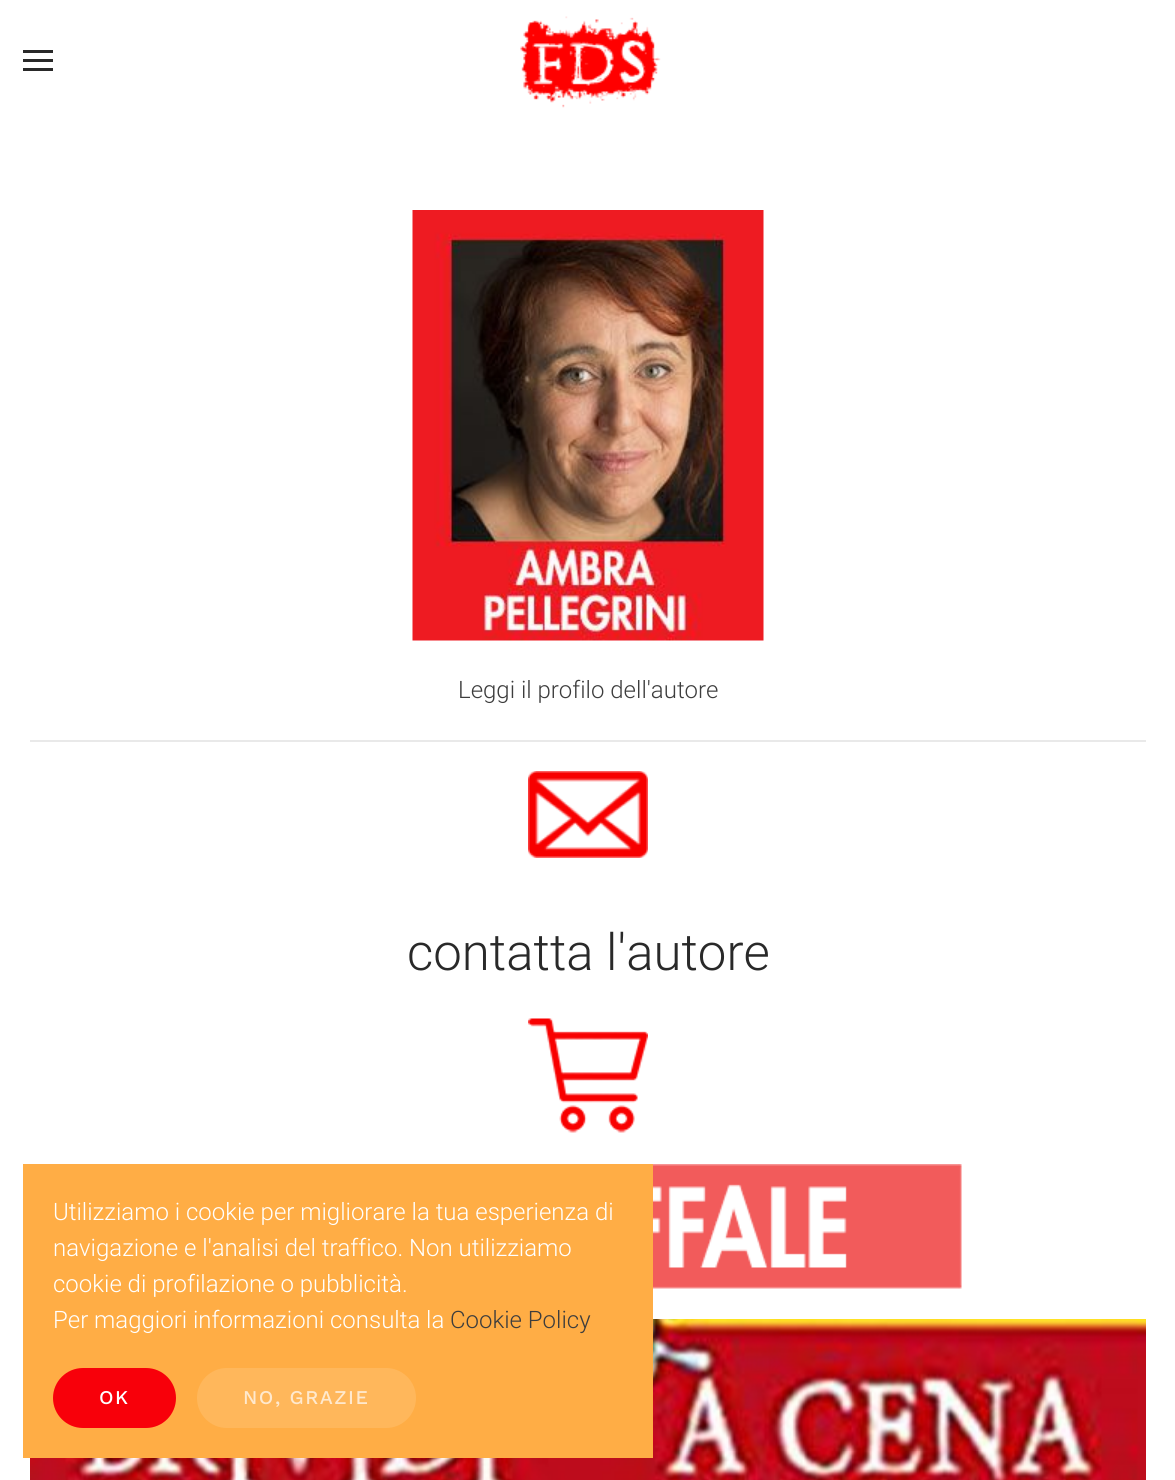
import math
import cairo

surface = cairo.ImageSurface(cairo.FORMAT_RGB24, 1175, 1480)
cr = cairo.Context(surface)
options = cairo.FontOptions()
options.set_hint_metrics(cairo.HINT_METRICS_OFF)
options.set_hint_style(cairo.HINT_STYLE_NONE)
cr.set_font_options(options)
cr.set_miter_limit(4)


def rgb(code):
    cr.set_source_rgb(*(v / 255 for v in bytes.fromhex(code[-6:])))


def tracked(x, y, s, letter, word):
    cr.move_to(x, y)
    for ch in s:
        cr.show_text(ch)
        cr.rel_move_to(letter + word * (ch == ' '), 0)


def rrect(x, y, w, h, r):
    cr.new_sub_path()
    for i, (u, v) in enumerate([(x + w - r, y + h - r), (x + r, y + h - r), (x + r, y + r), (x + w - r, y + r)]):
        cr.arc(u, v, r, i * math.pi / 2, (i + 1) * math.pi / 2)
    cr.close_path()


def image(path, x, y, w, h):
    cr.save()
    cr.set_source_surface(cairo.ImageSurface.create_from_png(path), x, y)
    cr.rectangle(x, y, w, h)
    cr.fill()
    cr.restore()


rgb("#ffffff")
cr.paint()
for x, y, w, h, color in [
    (23, 50, 30, 3, "#292929"),
    (23, 59, 30, 3, "#292929"),
    (23, 68, 30, 3, "#292929"),
]:
    rgb(color)
    cr.rectangle(x, y, w, h)
    cr.fill()
image("img/1.png", 520, 16, 141, 92)
image("img/2.png", 412, 210, 352, 431)
rgb("#e9e9e9")
cr.rectangle(30, 740, 1116, 2)
cr.fill()
image("img/3.png", 528, 771, 120, 87)
image("img/4.png", 528, 1018, 120, 115)
image("img/5.png", 653, 1164, 309, 125)
image("img/6.png", 30, 1319, 1116, 161)
rgb("#ffad45")
cr.rectangle(23, 1164, 630, 294)
cr.fill()
rgb("#f8000a")
rrect(53, 1368, 123, 60, 30)
cr.fill()
rgb("#ffb75b")
rrect(197, 1368, 219, 60, 30)
cr.fill()
cr.select_font_face("Roboto Light")
cr.set_font_size(24)
rgb("#3d3d3d")
cr.move_to(458, 698)
cr.show_text("Leggi il profilo dell'autore")
cr.set_font_size(51)
rgb("#292929")
cr.move_to(407, 970)
cr.show_text("contatta l'autore")
cr.set_font_size(24)
rgb("#ffffff")
for x, y, s in [
    (53, 1220, "Utilizziamo i cookie per migliorare la tua esperienza di"),
    (53, 1256, "navigazione e l'analisi del traffico. Non utilizziamo"),
    (53, 1292, "cookie di profilazione o pubblicità."),
    (53, 1328, "Per maggiori informazioni consulta la"),
]:
    cr.move_to(x, y)
    cr.show_text(s)
rgb("#3d3d3d")
cr.move_to(450, 1328)
cr.show_text("Cookie Policy")
cr.select_font_face("Work Sans Medium")
cr.set_font_size(19.5)
rgb("#ffffff")
tracked(99, 1404, "OK", 1.5, 0)
rgb("#ffe9ce")
tracked(243, 1404, "NO, GRAZIE", 1.5, 0)
surface.write_to_png("page.png")
